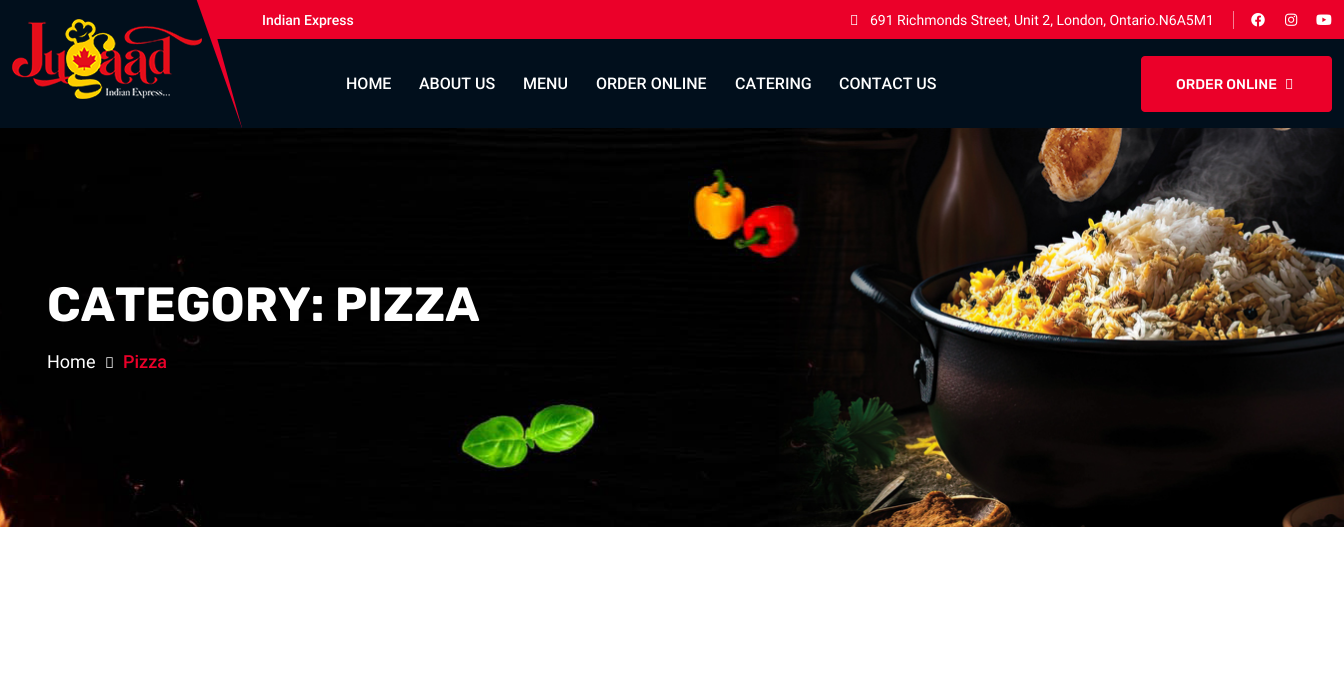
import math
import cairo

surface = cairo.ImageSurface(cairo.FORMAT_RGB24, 1344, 681)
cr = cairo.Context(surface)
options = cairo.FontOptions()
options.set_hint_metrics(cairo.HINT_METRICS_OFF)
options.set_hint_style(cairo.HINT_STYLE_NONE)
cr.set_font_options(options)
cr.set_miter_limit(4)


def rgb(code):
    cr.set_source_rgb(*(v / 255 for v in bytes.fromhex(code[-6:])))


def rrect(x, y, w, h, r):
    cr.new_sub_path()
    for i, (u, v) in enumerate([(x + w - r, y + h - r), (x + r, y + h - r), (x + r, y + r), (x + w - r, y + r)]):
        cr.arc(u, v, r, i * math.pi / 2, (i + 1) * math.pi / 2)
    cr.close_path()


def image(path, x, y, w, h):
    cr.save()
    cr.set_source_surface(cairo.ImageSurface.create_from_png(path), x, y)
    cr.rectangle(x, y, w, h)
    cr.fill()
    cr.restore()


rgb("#ffffff")
cr.paint()
rgb("#eb0029")
cr.rectangle(206, 0, 1138, 39)
cr.fill()
image("img/1.png", 851, 15, 7, 10)
rgb("#f58094")
cr.rectangle(1233, 11, 1, 18)
cr.fill()
image("img/2.png", 1251, 13, 14, 14)
image("img/3.png", 1285, 13, 13, 13)
image("img/4.png", 1316, 14, 16, 11)
rgb("#010f1c")
cr.rectangle(217, 39, 1127, 89)
cr.fill()
rgb("#eb0029")
cr.new_path()
cr.move_to(0, -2)
cr.line_to(0, 128)
cr.line_to(242, 128)
cr.line_to(206, -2)
cr.close_path()
cr.fill()
rgb("#010f1c")
cr.new_path()
cr.move_to(0, -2)
cr.line_to(196, -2)
cr.line_to(242, 128)
cr.line_to(0, 128)
cr.close_path()
cr.fill()
image("img/5.png", 12, 19, 190, 80)
rgb("#eb0029")
rrect(1141, 56, 191, 56, 4)
cr.fill()
image("img/1.png", 1286, 79, 7, 10)
image("img/6.png", 0, 128, 1344, 399)
image("img/7.png", 106, 357, 7, 11)
cr.select_font_face("Roboto Medium")
cr.set_font_size(14)
rgb("#ffffff")
cr.move_to(262, 25)
cr.show_text("Indian Express")
cr.select_font_face("Roboto")
cr.move_to(870, 25)
cr.show_text("691 Richmonds Street, Unit 2, London, Ontario.N6A5M1")
cr.select_font_face("Roboto Medium")
cr.set_font_size(16)
for x, y, s in [
    (346, 89, "HOME"),
    (419, 89, "ABOUT US"),
    (523, 89, "MENU"),
    (596, 89, "ORDER ONLINE"),
    (735, 89, "CATERING"),
    (839, 89, "CONTACT US"),
]:
    cr.move_to(x, y)
    cr.show_text(s)
cr.select_font_face("Rubik Medium")
cr.set_font_size(14)
cr.move_to(1176, 89)
cr.show_text("ORDER ONLINE")
cr.select_font_face("Rubik", cairo.FONT_SLANT_NORMAL, cairo.FONT_WEIGHT_BOLD)
cr.set_font_size(48)
cr.move_to(47, 321)
cr.show_text("CATEGORY: PIZZA")
cr.select_font_face("Roboto")
cr.set_font_size(18)
cr.move_to(47, 368)
cr.show_text("Home")
cr.select_font_face("Roboto Medium")
rgb("#eb0029")
cr.move_to(123, 368)
cr.show_text("Pizza")
surface.write_to_png("page.png")
